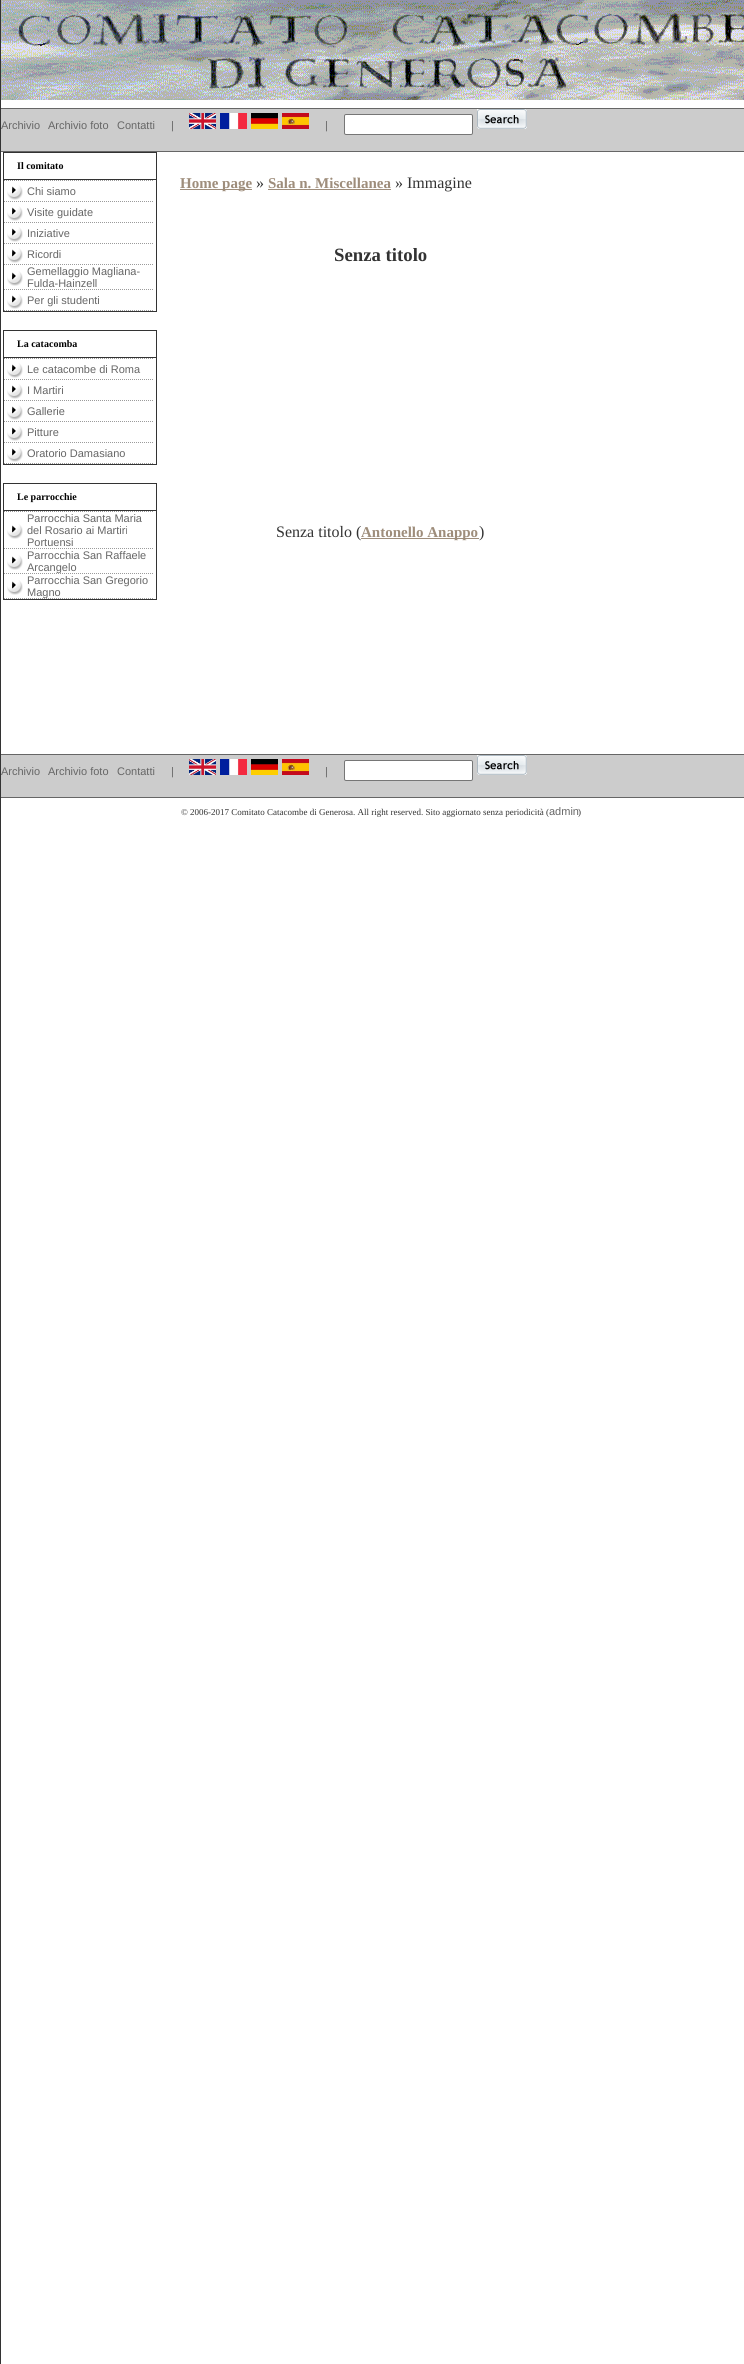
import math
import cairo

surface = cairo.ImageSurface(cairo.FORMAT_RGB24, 744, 2364)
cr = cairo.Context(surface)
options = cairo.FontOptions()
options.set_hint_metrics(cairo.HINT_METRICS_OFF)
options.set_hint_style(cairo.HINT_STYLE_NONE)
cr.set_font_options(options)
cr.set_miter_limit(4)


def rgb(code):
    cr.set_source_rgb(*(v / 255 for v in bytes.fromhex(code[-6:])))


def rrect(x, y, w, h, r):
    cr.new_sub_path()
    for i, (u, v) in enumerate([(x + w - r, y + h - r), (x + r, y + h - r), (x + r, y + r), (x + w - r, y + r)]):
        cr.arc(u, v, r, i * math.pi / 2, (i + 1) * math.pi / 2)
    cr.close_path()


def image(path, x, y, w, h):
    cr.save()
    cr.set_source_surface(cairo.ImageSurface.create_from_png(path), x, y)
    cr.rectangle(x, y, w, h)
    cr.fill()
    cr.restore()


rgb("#ffffff")
cr.paint()
rgb("#333333")
cr.rectangle(0, 0, 1, 2364)
cr.fill()
image("img/1.png", 1, 0, 743, 100)
for x, y, w, h, color in [
    (1, 109, 743, 42, "#cccccc"),
    (1, 108, 743, 1, "#666666"),
    (1, 151, 743, 1, "#666666"),
]:
    rgb(color)
    cr.rectangle(x, y, w, h)
    cr.fill()
image("img/2.png", 189, 113, 27, 16)
image("img/3.png", 220, 113, 27, 16)
image("img/4.png", 251, 113, 27, 16)
image("img/5.png", 282, 113, 27, 16)
rgb("#ffffff")
rrect(344.5, 114.5, 128, 20, 1.5)
cr.fill_preserve()
rgb("#767676")
cr.set_line_width(1)
cr.stroke()
image("img/6.png", 477, 109, 50, 20)
for x, y, w, h, color in [
    (3, 152, 154, 1, "#333333"),
    (156, 152, 1, 160, "#333333"),
    (3, 311, 154, 1, "#333333"),
    (3, 152, 1, 160, "#333333"),
    (3, 179, 154, 1, "#333333"),
]:
    rgb(color)
    cr.rectangle(x, y, w, h)
    cr.fill()
image("img/7.png", 4, 180, 149, 1)
image("img/8.png", 7, 185, 16, 15)
image("img/7.png", 4, 201, 149, 1)
image("img/8.png", 7, 206, 16, 15)
image("img/7.png", 4, 222, 149, 1)
image("img/8.png", 7, 227, 16, 15)
image("img/7.png", 4, 243, 149, 1)
image("img/8.png", 7, 248, 16, 15)
image("img/7.png", 4, 264, 149, 1)
image("img/8.png", 7, 271, 16, 15)
image("img/7.png", 4, 289, 149, 1)
image("img/8.png", 7, 294, 16, 15)
image("img/7.png", 4, 310, 149, 1)
for x, y, w, h, color in [
    (3, 330, 154, 1, "#333333"),
    (156, 330, 1, 135, "#333333"),
    (3, 464, 154, 1, "#333333"),
    (3, 330, 1, 135, "#333333"),
    (3, 357, 154, 1, "#333333"),
]:
    rgb(color)
    cr.rectangle(x, y, w, h)
    cr.fill()
image("img/7.png", 4, 358, 149, 1)
image("img/8.png", 7, 363, 16, 15)
image("img/7.png", 4, 379, 149, 1)
image("img/8.png", 7, 384, 16, 15)
image("img/7.png", 4, 400, 149, 1)
image("img/8.png", 7, 405, 16, 15)
image("img/7.png", 4, 421, 149, 1)
image("img/8.png", 7, 426, 16, 15)
image("img/7.png", 4, 442, 149, 1)
image("img/8.png", 7, 447, 16, 15)
image("img/7.png", 4, 463, 149, 1)
for x, y, w, h, color in [
    (3, 483, 154, 1, "#333333"),
    (156, 483, 1, 117, "#333333"),
    (3, 599, 154, 1, "#333333"),
    (3, 483, 1, 117, "#333333"),
    (3, 510, 154, 1, "#333333"),
]:
    rgb(color)
    cr.rectangle(x, y, w, h)
    cr.fill()
image("img/7.png", 4, 511, 149, 1)
image("img/8.png", 7, 524, 16, 15)
image("img/7.png", 4, 548, 149, 1)
image("img/8.png", 7, 555, 16, 15)
image("img/8.png", 7, 580, 16, 15)
for x, y, w, h, color in [
    (180, 189, 72, 1, "#9e8d7b"),
    (268, 189, 123, 1, "#9e8d7b"),
    (361, 538, 118, 1, "#9e8d7b"),
    (1, 755, 743, 42, "#cccccc"),
    (1, 754, 743, 1, "#666666"),
    (1, 797, 743, 1, "#666666"),
]:
    rgb(color)
    cr.rectangle(x, y, w, h)
    cr.fill()
image("img/9.png", 189, 759, 27, 16)
image("img/3.png", 220, 759, 27, 16)
image("img/10.png", 251, 759, 27, 16)
image("img/11.png", 282, 759, 27, 16)
rgb("#ffffff")
rrect(344.5, 760.5, 128, 20, 1.5)
cr.fill_preserve()
rgb("#767676")
cr.stroke()
image("img/6.png", 477, 755, 50, 20)
cr.select_font_face("Liberation Sans")
cr.set_font_size(11)
rgb("#666666")
for x, y, s in [
    (1, 129, "Archivio"),
    (48, 129, "Archivio foto"),
    (117, 129, "Contatti"),
    (171, 129, "|"),
    (325, 129, "|"),
]:
    cr.move_to(x, y)
    cr.show_text(s)
cr.select_font_face("Liberation Serif", cairo.FONT_SLANT_NORMAL, cairo.FONT_WEIGHT_BOLD)
cr.set_font_size(10)
rgb("#000000")
cr.move_to(17, 169)
cr.show_text("Il comitato")
cr.select_font_face("Liberation Sans")
cr.set_font_size(11)
rgb("#666666")
for x, y, s in [
    (27, 195, "Chi siamo"),
    (27, 216, "Visite guidate"),
    (27, 237, "Iniziative"),
    (27, 258, "Ricordi"),
    (27, 275, "Gemellaggio Magliana-"),
    (27, 287, "Fulda-Hainzell"),
    (27, 304, "Per gli studenti"),
]:
    cr.move_to(x, y)
    cr.show_text(s)
cr.select_font_face("Liberation Serif", cairo.FONT_SLANT_NORMAL, cairo.FONT_WEIGHT_BOLD)
cr.set_font_size(10)
rgb("#000000")
cr.move_to(17, 347)
cr.show_text("La catacomba")
cr.select_font_face("Liberation Sans")
cr.set_font_size(11)
rgb("#666666")
for x, y, s in [
    (27, 373, "Le catacombe di Roma"),
    (27, 394, "I Martiri"),
    (27, 415, "Gallerie"),
    (27, 436, "Pitture"),
    (27, 457, "Oratorio Damasiano"),
]:
    cr.move_to(x, y)
    cr.show_text(s)
cr.select_font_face("Liberation Serif", cairo.FONT_SLANT_NORMAL, cairo.FONT_WEIGHT_BOLD)
cr.set_font_size(10)
rgb("#000000")
cr.move_to(17, 500)
cr.show_text("Le parrocchie")
cr.select_font_face("Liberation Sans")
cr.set_font_size(11)
rgb("#666666")
for x, y, s in [
    (27, 522, "Parrocchia Santa Maria"),
    (27, 534, "del Rosario ai Martiri"),
    (27, 546, "Portuensi"),
    (27, 559, "Parrocchia San Raffaele"),
    (27, 571, "Arcangelo"),
]:
    cr.move_to(x, y)
    cr.show_text(s)
image("img/7.png", 4, 573, 149, 1)
cr.move_to(27, 584)
cr.show_text("Parrocchia San Gregorio")
cr.move_to(27, 596)
cr.show_text("Magno")
image("img/7.png", 4, 598, 149, 1)
cr.select_font_face("Liberation Serif", cairo.FONT_SLANT_NORMAL, cairo.FONT_WEIGHT_BOLD)
cr.set_font_size(15)
rgb("#9e8d7b")
cr.move_to(180, 188)
cr.show_text("Home page")
cr.select_font_face("Liberation Serif")
cr.set_font_size(16)
rgb("#333333")
cr.move_to(256, 188)
cr.show_text("»")
cr.select_font_face("Liberation Serif", cairo.FONT_SLANT_NORMAL, cairo.FONT_WEIGHT_BOLD)
cr.set_font_size(15)
rgb("#9e8d7b")
cr.move_to(268, 188)
cr.show_text("Sala n. Miscellanea")
cr.select_font_face("Liberation Serif")
cr.set_font_size(16)
rgb("#333333")
cr.move_to(395, 188)
cr.show_text("» Immagine")
cr.select_font_face("Liberation Serif", cairo.FONT_SLANT_NORMAL, cairo.FONT_WEIGHT_BOLD)
cr.set_font_size(18.75)
cr.move_to(334, 261)
cr.show_text("Senza titolo")
cr.select_font_face("Liberation Serif")
cr.set_font_size(16)
cr.move_to(276, 537)
cr.show_text("Senza titolo (")
cr.select_font_face("Liberation Serif", cairo.FONT_SLANT_NORMAL, cairo.FONT_WEIGHT_BOLD)
cr.set_font_size(15)
rgb("#9e8d7b")
cr.move_to(361, 537)
cr.show_text("Antonello Anappo")
cr.select_font_face("Liberation Serif")
cr.set_font_size(16)
rgb("#333333")
cr.move_to(479, 537)
cr.show_text(")")
cr.select_font_face("Liberation Sans")
cr.set_font_size(11)
rgb("#666666")
for x, y, s in [
    (1, 775, "Archivio"),
    (48, 775, "Archivio foto"),
    (117, 775, "Contatti"),
    (171, 775, "|"),
    (325, 775, "|"),
]:
    cr.move_to(x, y)
    cr.show_text(s)
cr.select_font_face("Liberation Serif")
cr.set_font_size(9)
rgb("#333333")
cr.move_to(181, 815)
cr.show_text("© 2006-2017 Comitato Catacombe di Generosa. All right reserved. Sito aggiornato senza periodicità (")
cr.select_font_face("Liberation Sans")
cr.set_font_size(11)
rgb("#666666")
cr.move_to(549, 815)
cr.show_text("admin")
cr.select_font_face("Liberation Serif")
cr.set_font_size(9)
rgb("#333333")
cr.move_to(578, 815)
cr.show_text(")")
surface.write_to_png("page.png")
